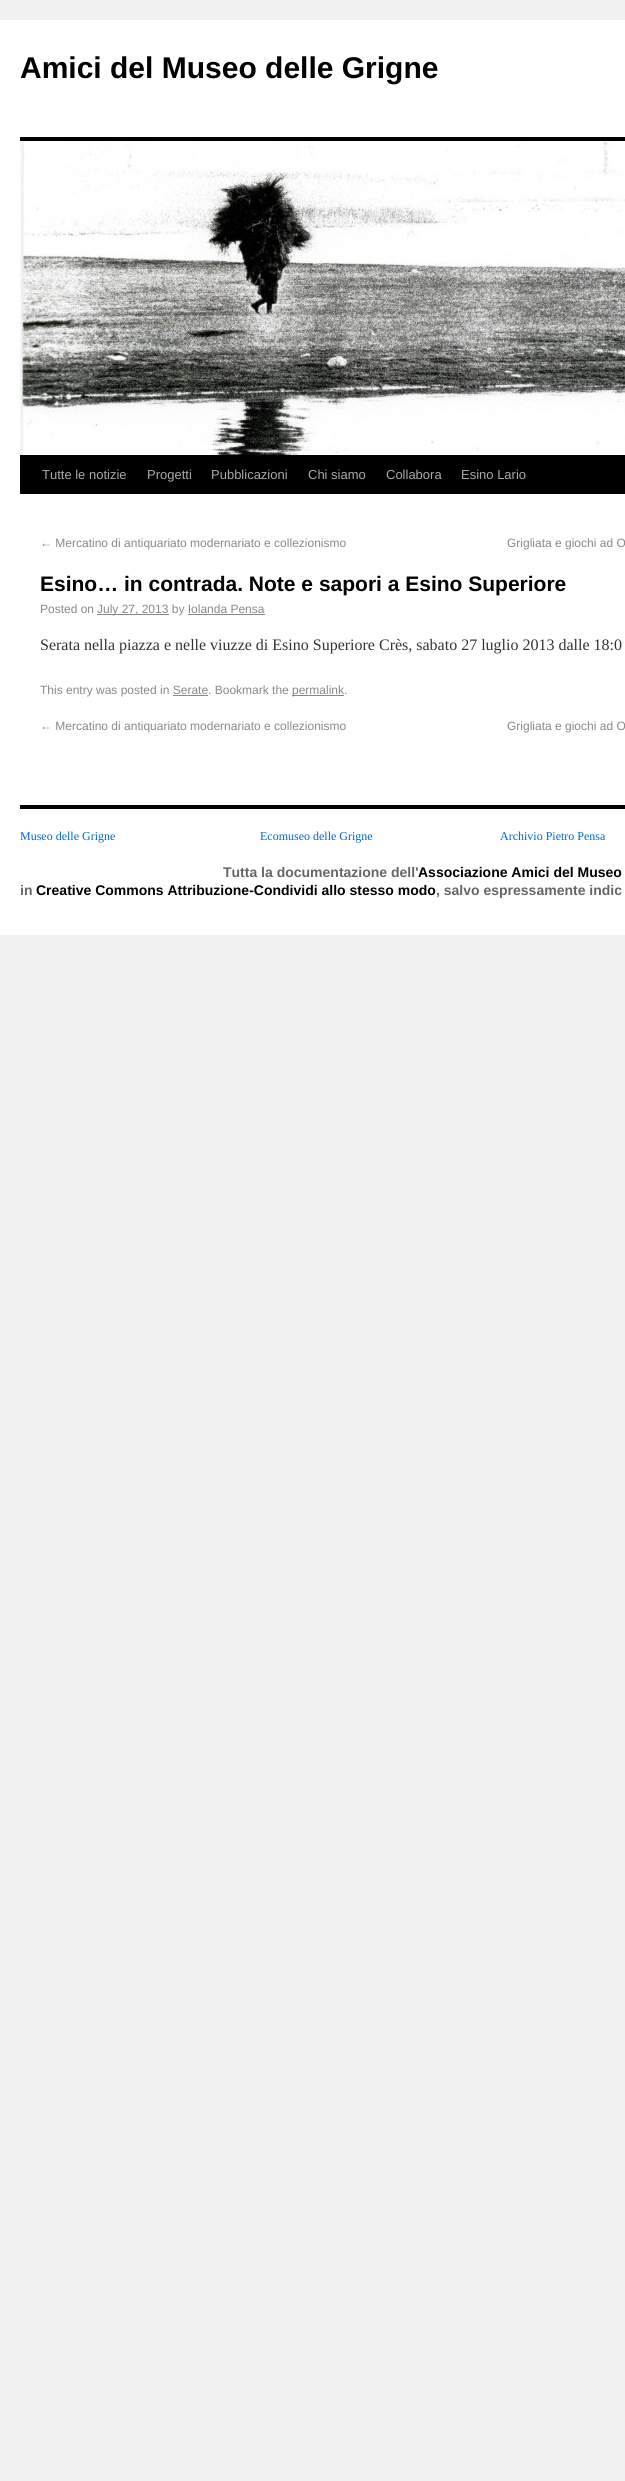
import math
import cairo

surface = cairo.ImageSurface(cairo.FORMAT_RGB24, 625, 2481)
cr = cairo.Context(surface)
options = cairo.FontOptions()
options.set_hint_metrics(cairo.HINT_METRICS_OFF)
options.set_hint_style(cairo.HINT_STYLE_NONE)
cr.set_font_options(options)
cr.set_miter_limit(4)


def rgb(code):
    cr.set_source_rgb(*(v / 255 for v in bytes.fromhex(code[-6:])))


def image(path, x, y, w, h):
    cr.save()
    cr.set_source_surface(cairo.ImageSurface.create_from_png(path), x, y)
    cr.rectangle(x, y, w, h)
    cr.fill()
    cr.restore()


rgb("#f1f1f1")
cr.paint()
for x, y, w, h, color in [
    (0, 20, 625, 915, "#ffffff"),
    (20, 137, 605, 4, "#000000"),
    (20, 455, 605, 39, "#000000"),
]:
    rgb(color)
    cr.rectangle(x, y, w, h)
    cr.fill()
image("img/1.png", 20, 141, 605, 314)
for x, y, w, h, color in [
    (97, 614, 72, 1, "#888888"),
    (188, 614, 77, 1, "#888888"),
    (292, 695, 52, 1, "#888888"),
    (173, 695, 35, 1, "#888888"),
    (20, 805, 605, 4, "#000000"),
]:
    rgb(color)
    cr.rectangle(x, y, w, h)
    cr.fill()
cr.select_font_face("Liberation Sans", cairo.FONT_SLANT_NORMAL, cairo.FONT_WEIGHT_BOLD)
cr.set_font_size(30)
cr.move_to(20, 78)
cr.show_text("Amici del Museo delle Grigne")
cr.select_font_face("Liberation Sans")
cr.set_font_size(13)
rgb("#aaaaaa")
for x, y, s in [
    (42, 479, "Tutte le notizie"),
    (147, 479, "Progetti"),
    (211, 479, "Pubblicazioni"),
    (308, 479, "Chi siamo"),
    (386, 479, "Collabora"),
    (461, 479, "Esino Lario"),
]:
    cr.move_to(x, y)
    cr.show_text(s)
cr.set_font_size(12)
rgb("#888888")
cr.move_to(40, 547)
cr.show_text("← Mercatino di antiquariato modernariato e collezionismo")
cr.move_to(507, 547)
cr.show_text("Grigliata e giochi ad O")
cr.select_font_face("Liberation Sans", cairo.FONT_SLANT_NORMAL, cairo.FONT_WEIGHT_BOLD)
cr.set_font_size(21)
rgb("#000000")
cr.move_to(40, 591)
cr.show_text("Esino… in contrada. Note e sapori a Esino Superiore")
cr.select_font_face("Liberation Sans")
cr.set_font_size(12)
rgb("#888888")
cr.move_to(40, 613)
cr.show_text("Posted on")
cr.move_to(97, 613)
cr.show_text("July 27, 2013 by Iolanda Pensa")
cr.select_font_face("Liberation Serif")
cr.set_font_size(16)
rgb("#333333")
cr.move_to(40, 650)
cr.show_text("Serata nella piazza e nelle viuzze di Esino Superiore Crès, sabato 27 luglio 2013 dalle 18:0")
cr.select_font_face("Liberation Sans")
cr.set_font_size(12)
rgb("#888888")
for x, y, s in [
    (40, 694, "This entry was posted in Serate. Bookmark the"),
    (292, 694, "permalink."),
    (40, 730, "← Mercatino di antiquariato modernariato e collezionismo"),
    (507, 730, "Grigliata e giochi ad O"),
]:
    cr.move_to(x, y)
    cr.show_text(s)
cr.select_font_face("Liberation Serif")
rgb("#0066cc")
for x, y, s in [
    (20, 840, "Museo delle Grigne"),
    (260, 840, "Ecomuseo delle Grigne"),
    (500, 840, "Archivio Pietro Pensa"),
]:
    cr.move_to(x, y)
    cr.show_text(s)
cr.select_font_face("Liberation Sans", cairo.FONT_SLANT_NORMAL, cairo.FONT_WEIGHT_BOLD)
cr.set_font_size(14)
rgb("#666666")
cr.move_to(223, 877)
cr.show_text("Tutta la documentazione dell'")
rgb("#000000")
cr.move_to(418, 877)
cr.show_text("Associazione Amici del Museo")
rgb("#666666")
cr.move_to(20, 895)
cr.show_text("in")
rgb("#000000")
cr.move_to(36, 895)
cr.show_text("Creative Commons Attribuzione-Condividi allo stesso modo")
rgb("#666666")
cr.move_to(436, 895)
cr.show_text(", salvo espressamente indic")
surface.write_to_png("page.png")
